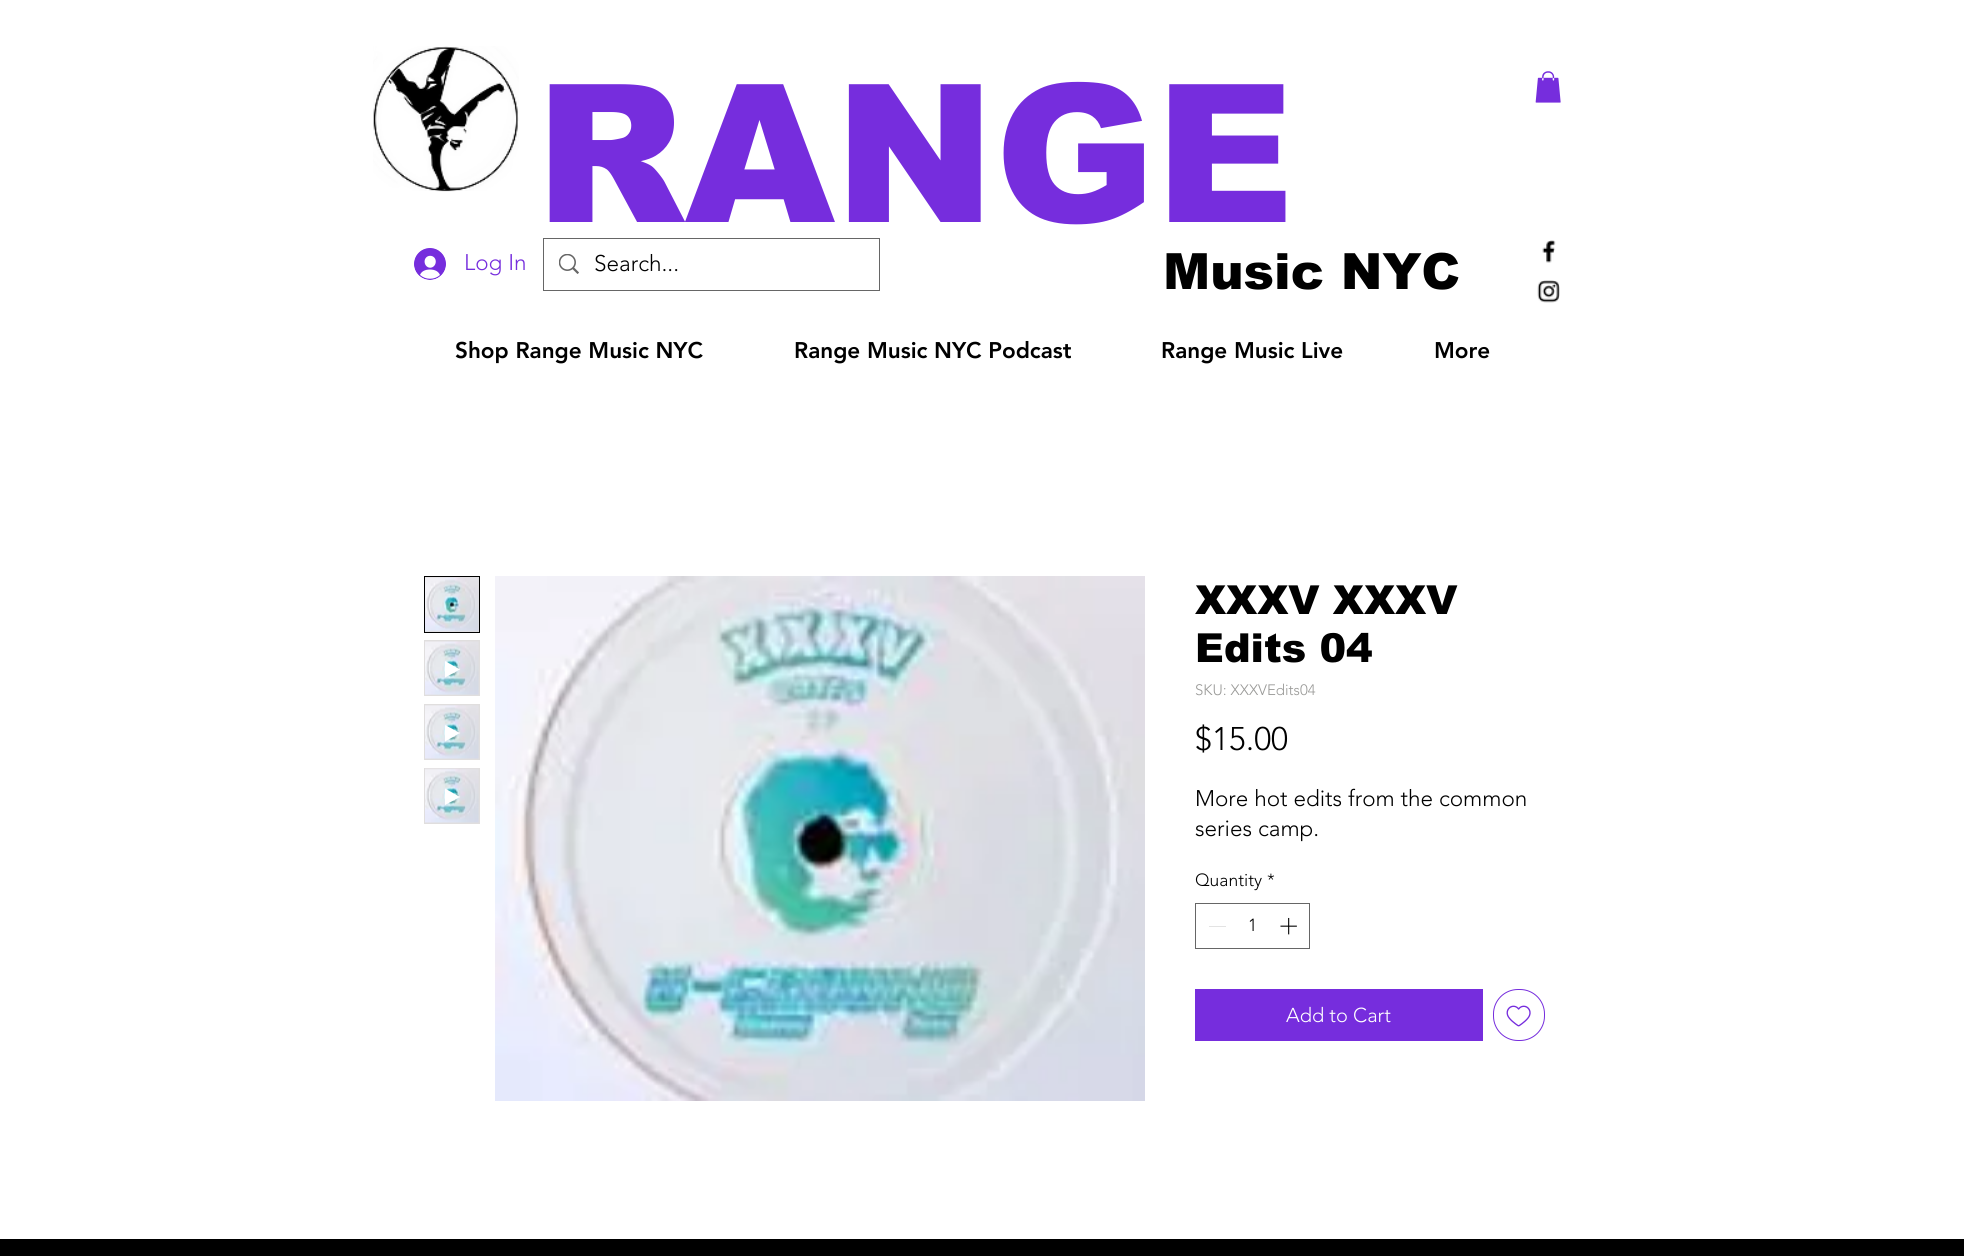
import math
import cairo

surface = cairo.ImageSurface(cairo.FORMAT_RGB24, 1964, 1256)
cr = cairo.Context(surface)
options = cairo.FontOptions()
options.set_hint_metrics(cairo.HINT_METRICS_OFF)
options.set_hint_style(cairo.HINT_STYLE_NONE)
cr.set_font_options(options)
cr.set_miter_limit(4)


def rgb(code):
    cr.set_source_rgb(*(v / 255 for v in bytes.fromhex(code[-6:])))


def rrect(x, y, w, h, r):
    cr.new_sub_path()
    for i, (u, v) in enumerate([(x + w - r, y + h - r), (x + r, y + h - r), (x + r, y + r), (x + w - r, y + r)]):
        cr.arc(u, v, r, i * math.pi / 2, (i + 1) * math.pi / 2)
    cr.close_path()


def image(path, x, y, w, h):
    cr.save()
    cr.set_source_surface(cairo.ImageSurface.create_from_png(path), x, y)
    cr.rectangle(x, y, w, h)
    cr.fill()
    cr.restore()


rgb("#ffffff")
cr.paint()
image("img/1.png", 373, 46, 146, 146)
image("img/2.png", 1535, 71, 26, 32)
image("img/3.png", 414, 248, 32, 32)
cr.rectangle(543.5, 238.5, 336, 52)
rgb("#666666")
cr.set_line_width(1)
cr.stroke()
image("img/4.png", 559, 254, 20, 20)
image("img/5.png", 1542, 240, 14, 23)
image("img/6.png", 1537, 280, 23, 23)
rgb("#e0dede")
cr.rectangle(424.5, 576.5, 55, 56)
cr.fill_preserve()
rgb("#000000")
cr.stroke()
image("img/7.png", 425, 577, 54, 55)
rgb("#e0dede")
cr.rectangle(424, 640, 56, 56)
cr.fill()
image("img/8.png", 425, 641, 54, 54)
rgb("#ffffff")
cr.new_path()
cr.move_to(445, 661)
cr.line_to(445, 677.5)
cr.line_to(460, 669.5)
cr.close_path()
cr.fill()
rgb("#e0dede")
cr.rectangle(424, 704, 56, 56)
cr.fill()
image("img/9.png", 425, 705, 54, 54)
rgb("#ffffff")
cr.new_path()
cr.move_to(445, 725)
cr.line_to(445, 741.5)
cr.line_to(460, 733)
cr.close_path()
cr.fill()
rgb("#e0dede")
cr.rectangle(424, 768, 56, 56)
cr.fill()
image("img/10.png", 425, 768, 54, 55)
rgb("#ffffff")
cr.new_path()
cr.move_to(445, 788.5)
cr.line_to(445, 805)
cr.line_to(460, 797)
cr.close_path()
cr.fill()
image("img/11.png", 495, 576, 650, 525)
cr.rectangle(1195.5, 903.5, 114, 45)
rgb("#666666")
cr.stroke()
rgb("#e3e3e3")
cr.rectangle(1209, 926, 17, 1)
cr.fill()
image("img/12.png", 1280, 917, 17, 18)
rgb("#762ddd")
cr.rectangle(1195, 989, 288, 52)
cr.fill()
rrect(1493.5, 989.5, 51, 51, 24.5)
cr.stroke()
image("img/13.png", 1506, 1005, 25, 22)
rgb("#000000")
cr.rectangle(0, 1239, 1964, 17)
cr.fill()
cr.select_font_face("arial Black")
cr.set_font_size(192.5)
rgb("#762ddd")
cr.move_to(535, 222)
cr.show_text("RANGE")
cr.select_font_face("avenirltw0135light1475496 Light")
cr.set_font_size(22.5)
cr.move_to(464, 270)
cr.show_text("Log In")
rgb("#000000")
cr.move_to(594, 271)
cr.show_text("Search...")
cr.select_font_face("arial Black")
cr.set_font_size(50)
cr.move_to(1163, 289)
cr.show_text("Music NYC")
cr.select_font_face("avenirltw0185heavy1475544 Black")
cr.set_font_size(22.5)
for x, y, s in [
    (455, 358, "Shop Range Music NYC"),
    (794, 358, "Range Music NYC Podcast"),
    (1161, 358, "Range Music Live"),
    (1434, 358, "More"),
]:
    cr.move_to(x, y)
    cr.show_text(s)
cr.select_font_face("arial Black")
cr.set_font_size(40)
cr.move_to(1195, 614)
cr.show_text("XXXV XXXV")
cr.move_to(1195, 662)
cr.show_text("Edits 04")
cr.select_font_face("avenirltw0135light1475496 Light")
cr.set_font_size(15)
rgb("#999997")
cr.move_to(1195, 695)
cr.show_text("SKU: XXXVEdits04")
cr.set_font_size(32.5)
rgb("#000000")
cr.move_to(1195, 750)
cr.show_text("$15.00")
cr.set_font_size(22.5)
cr.move_to(1195, 806)
cr.show_text("More hot edits from the common")
cr.move_to(1195, 836)
cr.show_text("series camp.")
cr.set_font_size(17.5)
for x, y, s in [
    (1195, 886, "Quantity"),
    (1267, 886, "*"),
    (1248, 931, "1"),
]:
    cr.move_to(x, y)
    cr.show_text(s)
cr.set_font_size(20)
rgb("#ffffff")
cr.move_to(1286, 1022)
cr.show_text("Add to Cart")
surface.write_to_png("page.png")
